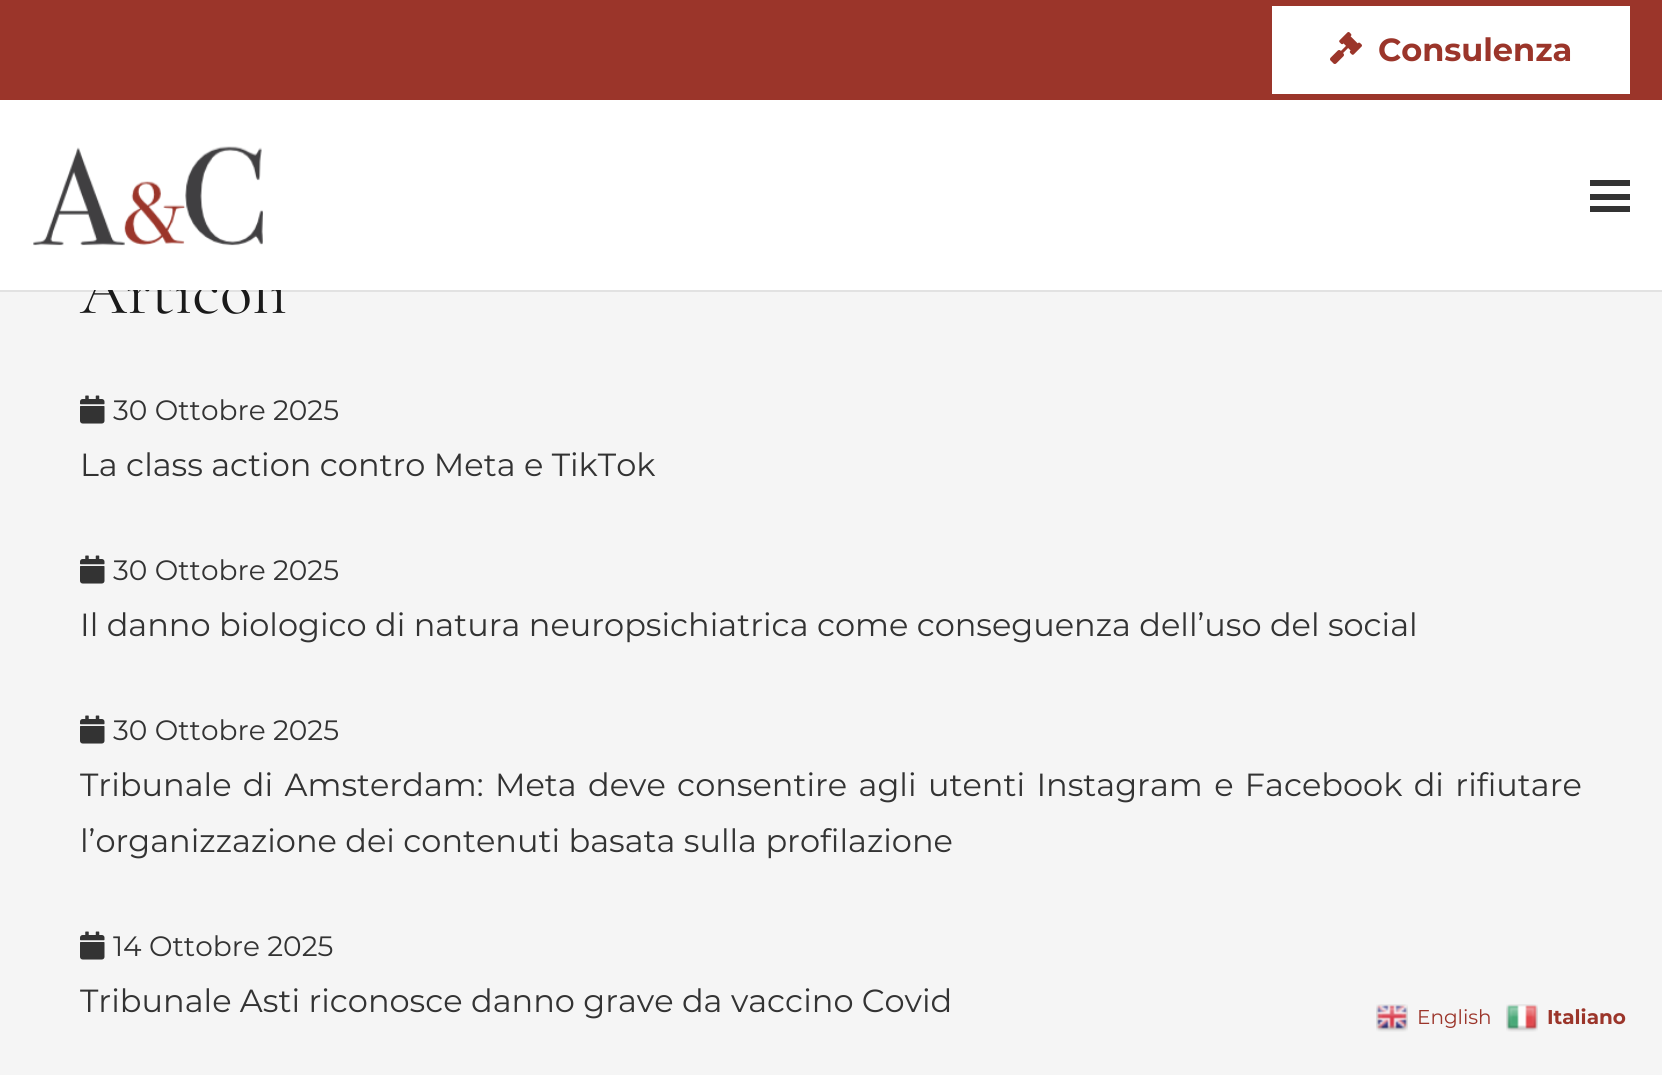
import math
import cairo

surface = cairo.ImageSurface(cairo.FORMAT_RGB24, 1662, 1075)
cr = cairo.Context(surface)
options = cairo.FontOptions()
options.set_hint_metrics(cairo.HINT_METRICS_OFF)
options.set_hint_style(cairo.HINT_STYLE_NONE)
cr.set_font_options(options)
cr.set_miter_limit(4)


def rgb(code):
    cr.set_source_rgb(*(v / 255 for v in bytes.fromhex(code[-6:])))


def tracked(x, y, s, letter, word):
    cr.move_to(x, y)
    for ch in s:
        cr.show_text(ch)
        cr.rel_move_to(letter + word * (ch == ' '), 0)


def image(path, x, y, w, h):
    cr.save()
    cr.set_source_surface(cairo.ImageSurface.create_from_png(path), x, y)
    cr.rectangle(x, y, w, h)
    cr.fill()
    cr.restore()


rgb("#f5f5f5")
cr.paint()
rgb("#9b352a")
cr.rectangle(0, 0, 1662, 100)
cr.fill()
rgb("#ffffff")
cr.rectangle(1272, 6, 358, 88)
cr.fill()
image("img/1.png", 1330, 32, 32, 32)
cr.set_source_rgba(0, 0, 0, 0.08)
cr.rectangle(0, 290, 1662, 2)
cr.fill()
image("img/3.png", 80, 395, 25, 29)
image("img/3.png", 80, 555, 25, 29)
image("img/3.png", 80, 715, 25, 29)
image("img/3.png", 80, 931, 25, 29)
image("img/4.png", 1376, 1004, 32, 28)
image("img/5.png", 1506, 1004, 32, 28)
cr.select_font_face("Montserrat", cairo.FONT_SLANT_NORMAL, cairo.FONT_WEIGHT_BOLD)
cr.set_font_size(32)
rgb("#9b352a")
cr.move_to(1378, 61)
cr.show_text("Consulenza")
cr.select_font_face("Cormorant Garamond")
cr.set_font_size(67)
rgb("#1a1a1a")
cr.move_to(80, 313)
cr.show_text("Articoli")
for x, y, w, h, color in [
    (0, 100, 1662, 190, "#ffffff"),
    (1590, 206, 40, 6, "#333333"),
    (1590, 180, 40, 6, "#333333"),
    (1590, 194, 40, 6, "#333333"),
]:
    rgb(color)
    cr.rectangle(x, y, w, h)
    cr.fill()
image("img/2.png", 33, 146, 230, 100)
cr.select_font_face("Montserrat")
cr.set_font_size(28)
cr.move_to(113, 420)
cr.show_text("30 Ottobre 2025")
cr.set_font_size(32)
cr.move_to(80, 476)
cr.show_text("La class action contro Meta e TikTok")
cr.set_font_size(28)
cr.move_to(113, 580)
cr.show_text("30 Ottobre 2025")
cr.set_font_size(32)
cr.move_to(80, 636)
cr.show_text("Il danno biologico di natura neuropsichiatrica come conseguenza dell’uso del social")
cr.set_font_size(28)
cr.move_to(113, 740)
cr.show_text("30 Ottobre 2025")
cr.set_font_size(32)
tracked(80, 796, "Tribunale di Amsterdam: Meta deve consentire agli utenti Instagram e Facebook di rifiutare", 0, 3)
cr.move_to(80, 852)
cr.show_text("l’organizzazione dei contenuti basata sulla profilazione")
cr.set_font_size(28)
cr.move_to(113, 956)
cr.show_text("14 Ottobre 2025")
cr.set_font_size(32)
cr.move_to(80, 1012)
cr.show_text("Tribunale Asti riconosce danno grave da vaccino Covid")
cr.set_font_size(20)
rgb("#9b352a")
cr.move_to(1417, 1024)
cr.show_text("English")
cr.select_font_face("Montserrat", cairo.FONT_SLANT_NORMAL, cairo.FONT_WEIGHT_BOLD)
cr.move_to(1547, 1024)
cr.show_text("Italiano")
surface.write_to_png("page.png")
